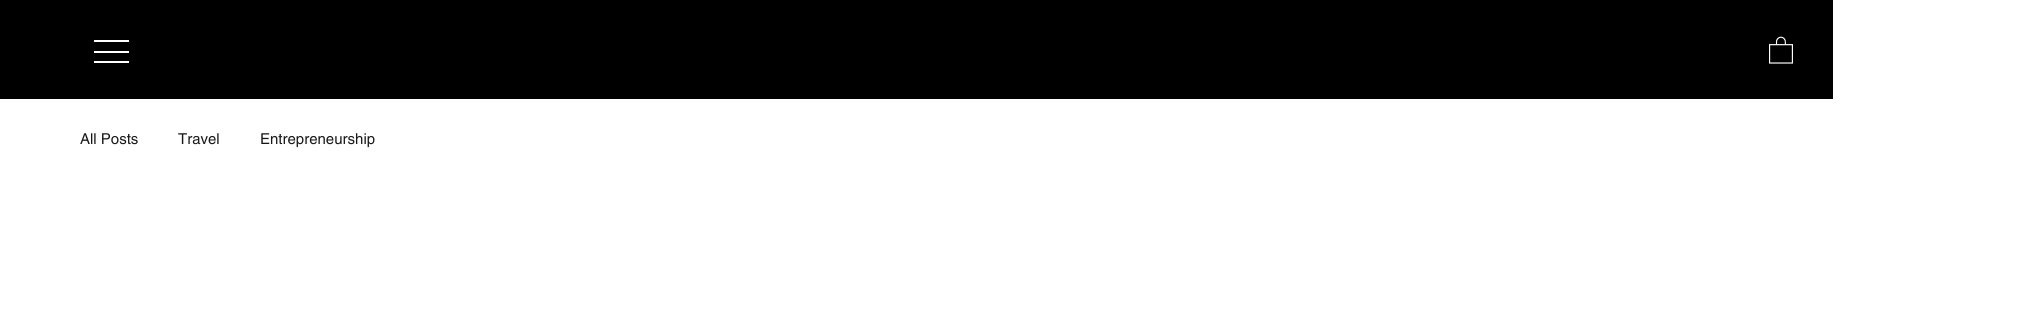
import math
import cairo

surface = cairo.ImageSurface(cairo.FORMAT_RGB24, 2033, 325)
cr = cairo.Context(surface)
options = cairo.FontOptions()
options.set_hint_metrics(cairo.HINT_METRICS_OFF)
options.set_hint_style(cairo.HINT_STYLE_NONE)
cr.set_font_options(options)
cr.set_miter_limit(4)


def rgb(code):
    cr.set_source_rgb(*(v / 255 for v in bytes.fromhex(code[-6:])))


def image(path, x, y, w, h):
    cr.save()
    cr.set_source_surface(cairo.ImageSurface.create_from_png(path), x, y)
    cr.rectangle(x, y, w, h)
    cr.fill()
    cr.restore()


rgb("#ffffff")
cr.paint()
for x, y, w, h, color in [
    (0, 0, 1833, 99, "#000000"),
    (94, 40, 35, 2, "#ffffff"),
    (94, 51, 35, 2, "#ffffff"),
    (94, 61, 35, 2, "#ffffff"),
]:
    rgb(color)
    cr.rectangle(x, y, w, h)
    cr.fill()
image("img/1.png", 1769, 36, 24, 28)
cr.select_font_face("helvetica")
cr.set_font_size(15)
rgb("#181818")
for x, y, s in [
    (80, 144, "All Posts"),
    (178, 144, "Travel"),
    (260, 144, "Entrepreneurship"),
]:
    cr.move_to(x, y)
    cr.show_text(s)
surface.write_to_png("page.png")
